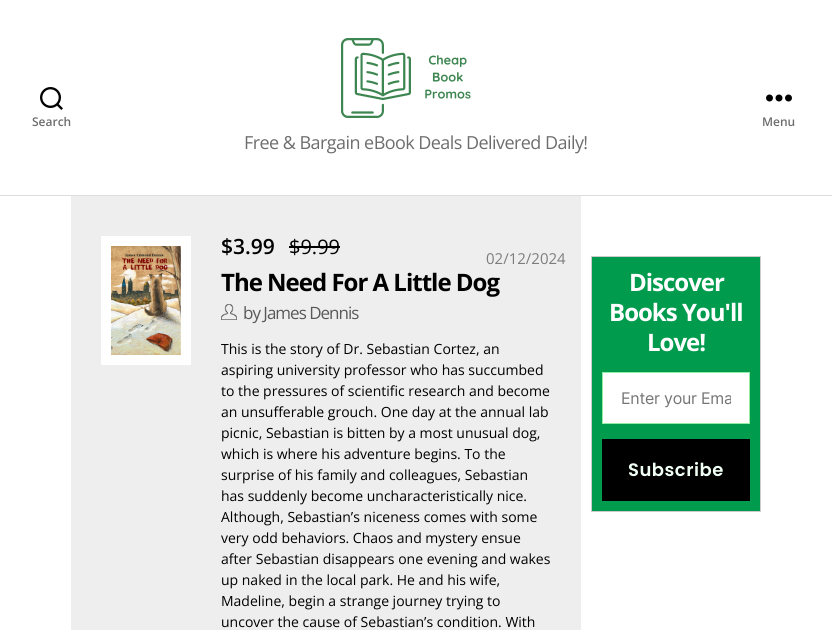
import math
import cairo

surface = cairo.ImageSurface(cairo.FORMAT_RGB24, 832, 630)
cr = cairo.Context(surface)
options = cairo.FontOptions()
options.set_hint_metrics(cairo.HINT_METRICS_OFF)
options.set_hint_style(cairo.HINT_STYLE_NONE)
cr.set_font_options(options)
cr.set_miter_limit(4)


def rgb(code):
    cr.set_source_rgb(*(v / 255 for v in bytes.fromhex(code[-6:])))


def tracked(x, y, s, letter, word):
    cr.move_to(x, y)
    for ch in s:
        cr.show_text(ch)
        cr.rel_move_to(letter + word * (ch == ' '), 0)


def image(path, x, y, w, h):
    cr.save()
    cr.set_source_surface(cairo.ImageSurface.create_from_png(path), x, y)
    cr.rectangle(x, y, w, h)
    cr.fill()
    cr.restore()


rgb("#ffffff")
cr.paint()
rgb("#dddddd")
cr.rectangle(0, 195, 832, 1)
cr.fill()
image("img/1.png", 40, 87, 23, 23)
image("img/2.png", 766, 94, 26, 8)
image("img/3.png", 341, 38, 130, 80)
rgb("#eeeeee")
cr.rectangle(71, 196, 510, 434)
cr.fill()
cr.rectangle(106, 241, 80, 119)
rgb("#ffffff")
cr.set_line_width(10)
cr.stroke()
image("img/4.png", 111, 246, 70, 109)
rgb("#000000")
cr.rectangle(289, 246, 51, 2)
cr.fill()
image("img/5.png", 221, 304, 16, 16)
rgb("#009b4c")
cr.rectangle(591.5, 256.5, 169, 255)
cr.fill_preserve()
rgb("#cccccc")
cr.set_line_width(1)
cr.stroke()
rgb("#ffffff")
cr.rectangle(602.5, 372.5, 147, 51)
cr.fill_preserve()
rgb("#91eda5")
cr.stroke()
rgb("#000000")
cr.rectangle(602, 439, 148, 62)
cr.fill()
cr.select_font_face("Open Sans SemiBold")
cr.set_font_size(12)
rgb("#6d6d6d")
cr.move_to(32, 126)
cr.show_text("Search")
cr.move_to(762, 126)
cr.show_text("Menu")
cr.select_font_face("Open Sans")
cr.set_font_size(18)
tracked(244, 149, "Free & Bargain eBook Deals Delivered Daily!", -0.55, 0)
cr.select_font_face("Open Sans SemiBold")
cr.set_font_size(21)
rgb("#000000")
cr.move_to(221, 254)
cr.show_text("$3.99")
cr.select_font_face("Open Sans")
cr.set_font_size(20)
cr.move_to(289, 254)
cr.show_text("$9.99")
cr.set_font_size(15)
rgb("#7d7d7d")
cr.move_to(486, 264)
cr.show_text("02/12/2024")
cr.select_font_face("Open Sans", cairo.FONT_SLANT_NORMAL, cairo.FONT_WEIGHT_BOLD)
cr.set_font_size(24)
rgb("#000000")
tracked(221, 291, "The Need For A Little Dog", -1, 0)
cr.select_font_face("Open Sans")
cr.set_font_size(17)
rgb("#595959")
tracked(243, 319, "by James Dennis", -1, 0)
cr.set_font_size(14)
rgb("#000000")
for x, y, s in [
    (221, 354, "This is the story of Dr. Sebastian Cortez, an"),
    (221, 375, "aspiring university professor who has succumbed"),
    (221, 396, "to the pressures of scientific research and become"),
    (221, 417, "an unsufferable grouch. One day at the annual lab"),
    (221, 438, "picnic, Sebastian is bitten by a most unusual dog,"),
    (221, 459, "which is where his adventure begins. To the"),
    (221, 480, "surprise of his family and colleagues, Sebastian"),
    (221, 501, "has suddenly become uncharacteristically nice."),
    (221, 522, "Although, Sebastian’s niceness comes with some"),
    (221, 543, "very odd behaviors. Chaos and mystery ensue"),
    (221, 564, "after Sebastian disappears one evening and wakes"),
    (221, 585, "up naked in the local park. He and his wife,"),
    (221, 606, "Madeline, begin a strange journey trying to"),
    (221, 627, "uncover the cause of Sebastian’s condition. With"),
]:
    cr.move_to(x, y)
    cr.show_text(s)
cr.select_font_face("Open Sans", cairo.FONT_SLANT_NORMAL, cairo.FONT_WEIGHT_BOLD)
cr.set_font_size(24)
rgb("#ffffff")
for x, y, s in [
    (629, 291, "Discover"),
    (609, 321, "Books You'll"),
    (647, 351, "Love!"),
]:
    tracked(x, y, s, -1, 0)
cr.save()
cr.rectangle(621, 388, 110, 20)
cr.clip()
cr.select_font_face("Inter")
cr.set_font_size(16)
rgb("#757575")
tracked(621, 404, "Enter your Ema", -0.25, 0)
cr.restore()
cr.select_font_face("Poppins SemiBold")
cr.set_font_size(18)
rgb("#f0fff4")
tracked(628, 476, "Subscribe", 0.5, 0)
surface.write_to_png("page.png")
